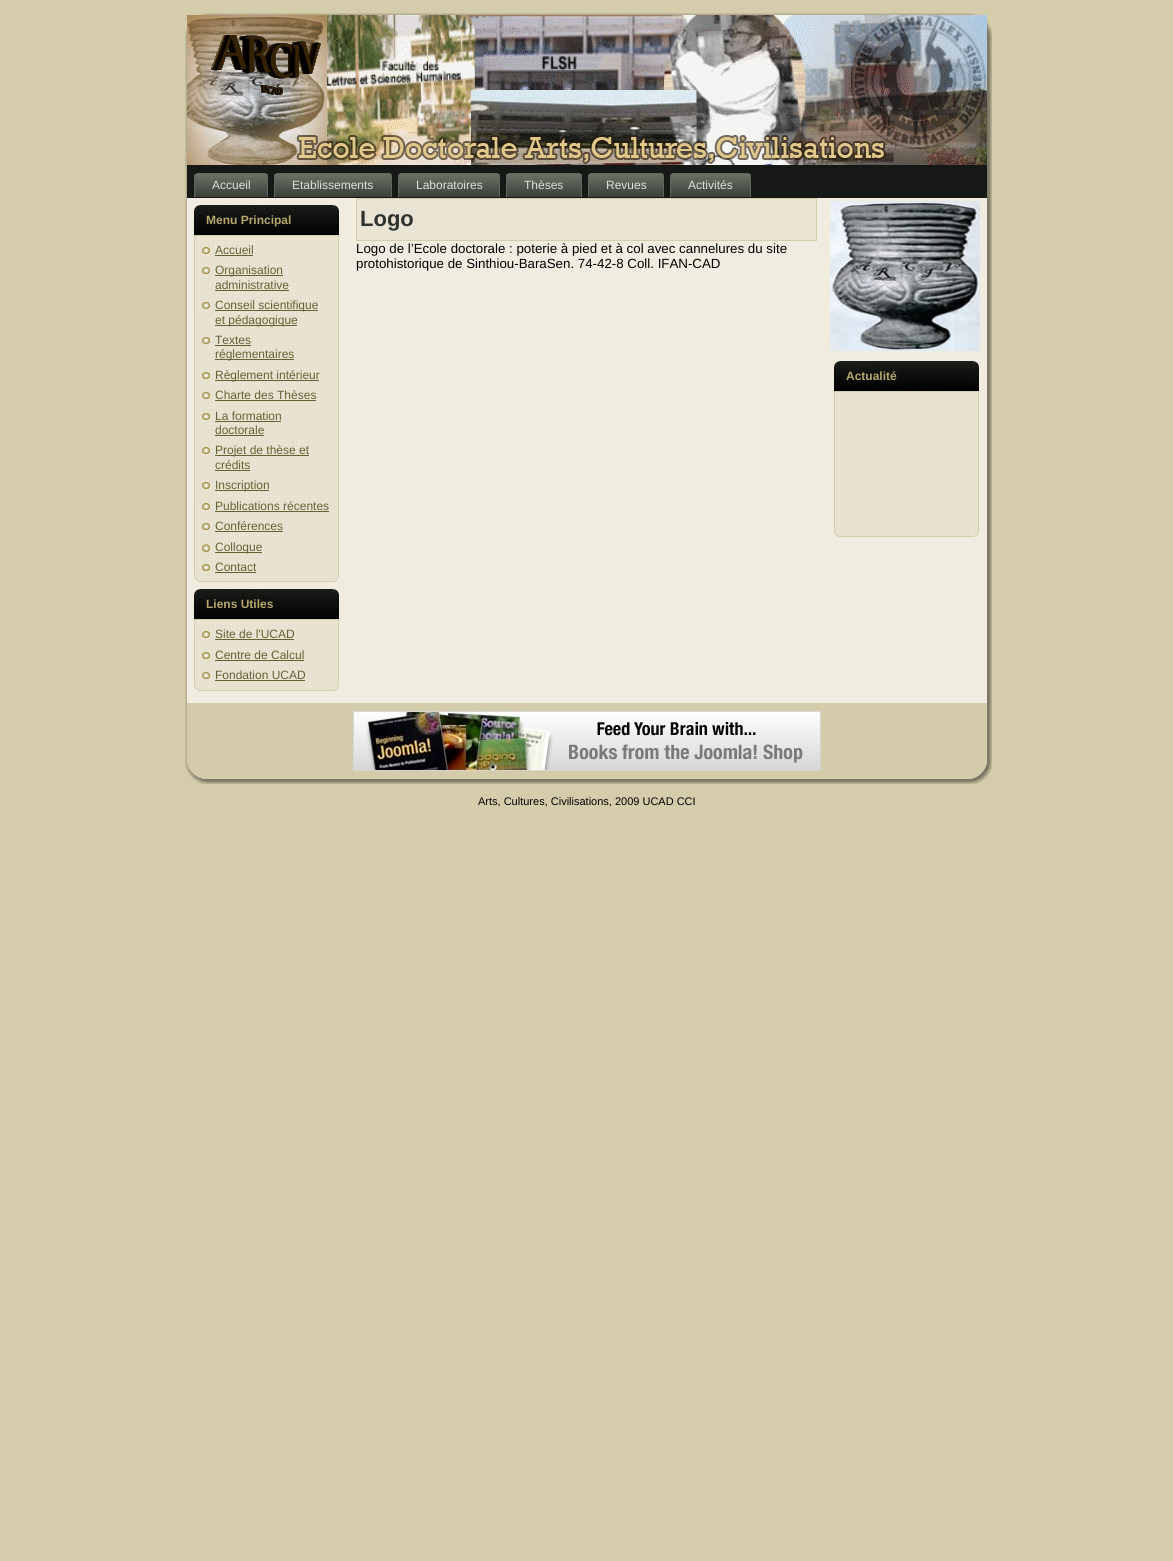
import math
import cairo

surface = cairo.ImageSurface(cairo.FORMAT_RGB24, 1173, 1561)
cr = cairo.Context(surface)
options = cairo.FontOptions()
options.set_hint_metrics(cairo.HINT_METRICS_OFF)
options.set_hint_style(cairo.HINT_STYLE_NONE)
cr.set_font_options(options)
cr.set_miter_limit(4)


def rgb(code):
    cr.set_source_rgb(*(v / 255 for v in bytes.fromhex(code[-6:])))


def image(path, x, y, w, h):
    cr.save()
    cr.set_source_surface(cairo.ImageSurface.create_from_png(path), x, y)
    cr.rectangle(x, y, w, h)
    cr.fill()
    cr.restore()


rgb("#d4ccaa")
cr.paint()
image("img/1.png", 185, 13, 37, 37)
image("img/2.png", 222, 13, 730, 2)
image("img/3.png", 952, 13, 40, 37)
image("img/4.png", 185, 50, 37, 694)
image("img/40.png", 952, 50, 40, 694)
image("img/5.png", 187, 15, 800, 150)
image("img/6.png", 211, 35, 110, 60)
rgb("#161816")
cr.rectangle(187, 165, 800, 33)
cr.fill()
image("img/7.png", 194, 173, 3, 24)
image("img/8.png", 265, 173, 3, 24)
image("img/9.png", 197, 173, 68, 24)
image("img/10.png", 274, 173, 3, 24)
image("img/8.png", 389, 173, 3, 24)
image("img/11.png", 277, 173, 112, 24)
image("img/10.png", 398, 173, 3, 24)
image("img/8.png", 497, 173, 3, 24)
image("img/12.png", 401, 173, 96, 24)
image("img/10.png", 506, 173, 3, 24)
image("img/8.png", 579, 173, 3, 24)
image("img/13.png", 509, 173, 70, 24)
image("img/10.png", 588, 173, 3, 24)
image("img/8.png", 661, 173, 3, 24)
image("img/13.png", 591, 173, 70, 24)
image("img/10.png", 670, 173, 3, 24)
image("img/8.png", 748, 173, 3, 24)
image("img/14.png", 673, 173, 75, 24)
rgb("#f0ede0")
cr.rectangle(222, 198, 730, 505)
cr.fill()
image("img/15.png", 194, 205, 139, 30)
image("img/16.png", 333, 205, 6, 30)
image("img/17.png", 194, 235, 7, 7)
image("img/18.png", 201, 235, 131, 7)
image("img/19.png", 332, 235, 7, 7)
image("img/20.png", 194, 242, 7, 333)
image("img/21.png", 201, 242, 131, 333)
image("img/22.png", 332, 242, 7, 333)
image("img/23.png", 202, 247, 8, 7)
rgb("#695f35")
cr.rectangle(215, 255, 38, 1)
cr.fill()
image("img/23.png", 202, 267, 8, 7)
cr.rectangle(215, 275, 68, 1)
cr.fill()
cr.rectangle(215, 290, 74, 1)
cr.fill()
image("img/24.png", 202, 302, 8, 7)
cr.rectangle(215, 310, 103, 1)
cr.fill()
cr.rectangle(215, 325, 82, 1)
cr.fill()
image("img/25.png", 202, 337, 8, 7)
cr.rectangle(215, 345, 36, 1)
cr.fill()
cr.rectangle(215, 359, 79, 1)
cr.fill()
image("img/26.png", 202, 372, 8, 7)
cr.rectangle(215, 380, 104, 1)
cr.fill()
image("img/26.png", 202, 392, 8, 7)
cr.rectangle(215, 400, 101, 1)
cr.fill()
image("img/25.png", 202, 413, 8, 7)
cr.rectangle(215, 421, 66, 1)
cr.fill()
cr.rectangle(215, 435, 49, 1)
cr.fill()
image("img/23.png", 202, 447, 8, 7)
cr.rectangle(215, 455, 94, 1)
cr.fill()
cr.rectangle(215, 470, 35, 1)
cr.fill()
image("img/24.png", 202, 482, 8, 7)
cr.rectangle(215, 490, 54, 1)
cr.fill()
image("img/23.png", 202, 503, 8, 7)
cr.rectangle(215, 511, 114, 1)
cr.fill()
image("img/23.png", 202, 523, 8, 7)
cr.rectangle(215, 531, 68, 1)
cr.fill()
image("img/27.png", 202, 544, 8, 8)
cr.rectangle(215, 552, 47, 1)
cr.fill()
image("img/26.png", 202, 564, 8, 7)
cr.rectangle(215, 572, 41, 1)
cr.fill()
image("img/28.png", 194, 575, 7, 7)
image("img/29.png", 201, 575, 131, 7)
image("img/30.png", 332, 575, 7, 7)
image("img/15.png", 194, 589, 139, 30)
image("img/16.png", 333, 589, 6, 30)
image("img/17.png", 194, 619, 7, 7)
image("img/18.png", 201, 619, 131, 7)
image("img/19.png", 332, 619, 7, 7)
image("img/31.png", 194, 626, 7, 58)
image("img/32.png", 201, 626, 131, 58)
image("img/33.png", 332, 626, 7, 58)
image("img/23.png", 202, 631, 8, 7)
cr.rectangle(215, 639, 79, 1)
cr.fill()
image("img/26.png", 202, 652, 8, 7)
cr.rectangle(215, 660, 89, 1)
cr.fill()
image("img/26.png", 202, 672, 8, 7)
cr.rectangle(215, 680, 90, 1)
cr.fill()
image("img/28.png", 194, 684, 7, 7)
image("img/29.png", 201, 684, 131, 7)
image("img/30.png", 332, 684, 7, 7)
rgb("#e9e4d3")
cr.rectangle(356.5, 198.5, 460, 42)
cr.fill_preserve()
rgb("#d4ccaa")
cr.set_line_width(1)
cr.stroke()
image("img/34.png", 830, 201, 150, 150)
image("img/15.png", 834, 361, 139, 30)
image("img/16.png", 973, 361, 6, 30)
image("img/17.png", 834, 391, 7, 7)
image("img/18.png", 841, 391, 131, 7)
image("img/19.png", 972, 391, 7, 7)
image("img/35.png", 834, 398, 7, 132)
image("img/36.png", 841, 398, 131, 132)
image("img/37.png", 972, 398, 7, 132)
image("img/28.png", 834, 530, 7, 7)
image("img/29.png", 841, 530, 131, 7)
image("img/30.png", 972, 530, 7, 7)
image("img/41.png", 185, 744, 37, 40)
image("img/43.png", 952, 744, 40, 40)
image("img/38.png", 187, 703, 800, 76)
image("img/39.png", 353, 711, 468, 60)
image("img/42.png", 222, 779, 730, 5)
cr.select_font_face("Liberation Sans")
cr.set_font_size(12)
rgb("#dde0dc")
for x, y, s in [
    (212, 189, "Accueil"),
    (292, 189, "Etablissements"),
    (416, 189, "Laboratoires"),
    (524, 189, "Thèses"),
    (606, 189, "Revues"),
    (688, 189, "Activités"),
]:
    cr.move_to(x, y)
    cr.show_text(s)
cr.select_font_face("Liberation Sans", cairo.FONT_SLANT_NORMAL, cairo.FONT_WEIGHT_BOLD)
rgb("#b6a76d")
cr.move_to(206, 224)
cr.show_text("Menu Principal")
cr.select_font_face("Liberation Sans")
rgb("#695f35")
for x, y, s in [
    (215, 254, "Accueil"),
    (215, 274, "Organisation"),
    (215, 289, "administrative"),
    (215, 309, "Conseil scientifique"),
    (215, 324, "et pédagogique"),
    (215, 344, "Textes"),
    (215, 358, "réglementaires"),
    (215, 379, "Règlement intérieur"),
    (215, 399, "Charte des Thèses"),
    (215, 420, "La formation"),
    (215, 434, "doctorale"),
    (215, 454, "Projet de thèse et"),
    (215, 469, "crédits"),
    (215, 489, "Inscription"),
    (215, 510, "Publications récentes"),
    (215, 530, "Conférences"),
    (215, 551, "Colloque"),
    (215, 571, "Contact"),
]:
    cr.move_to(x, y)
    cr.show_text(s)
cr.select_font_face("Liberation Sans", cairo.FONT_SLANT_NORMAL, cairo.FONT_WEIGHT_BOLD)
rgb("#b6a76d")
cr.move_to(206, 608)
cr.show_text("Liens Utiles")
cr.select_font_face("Liberation Sans")
rgb("#695f35")
for x, y, s in [
    (215, 638, "Site de l'UCAD"),
    (215, 659, "Centre de Calcul"),
    (215, 679, "Fondation UCAD"),
]:
    cr.move_to(x, y)
    cr.show_text(s)
cr.select_font_face("Liberation Sans", cairo.FONT_SLANT_NORMAL, cairo.FONT_WEIGHT_BOLD)
cr.set_font_size(22)
rgb("#2f332e")
cr.move_to(360, 226)
cr.show_text("Logo")
cr.select_font_face("Liberation Sans")
cr.set_font_size(13.3)
rgb("#000000")
cr.move_to(356, 253)
cr.show_text("Logo de l’Ecole doctorale : poterie à pied et à col avec cannelures du site")
cr.move_to(356, 268)
cr.show_text("protohistorique de Sinthiou-BaraSen. 74-42-8 Coll. IFAN-CAD")
cr.select_font_face("Liberation Sans", cairo.FONT_SLANT_NORMAL, cairo.FONT_WEIGHT_BOLD)
cr.set_font_size(12)
rgb("#b6a76d")
cr.move_to(846, 380)
cr.show_text("Actualité")
cr.select_font_face("Liberation Sans")
cr.set_font_size(11)
rgb("#000000")
cr.move_to(478, 805)
cr.show_text("Arts, Cultures, Civilisations, 2009 UCAD CCI")
surface.write_to_png("page.png")
